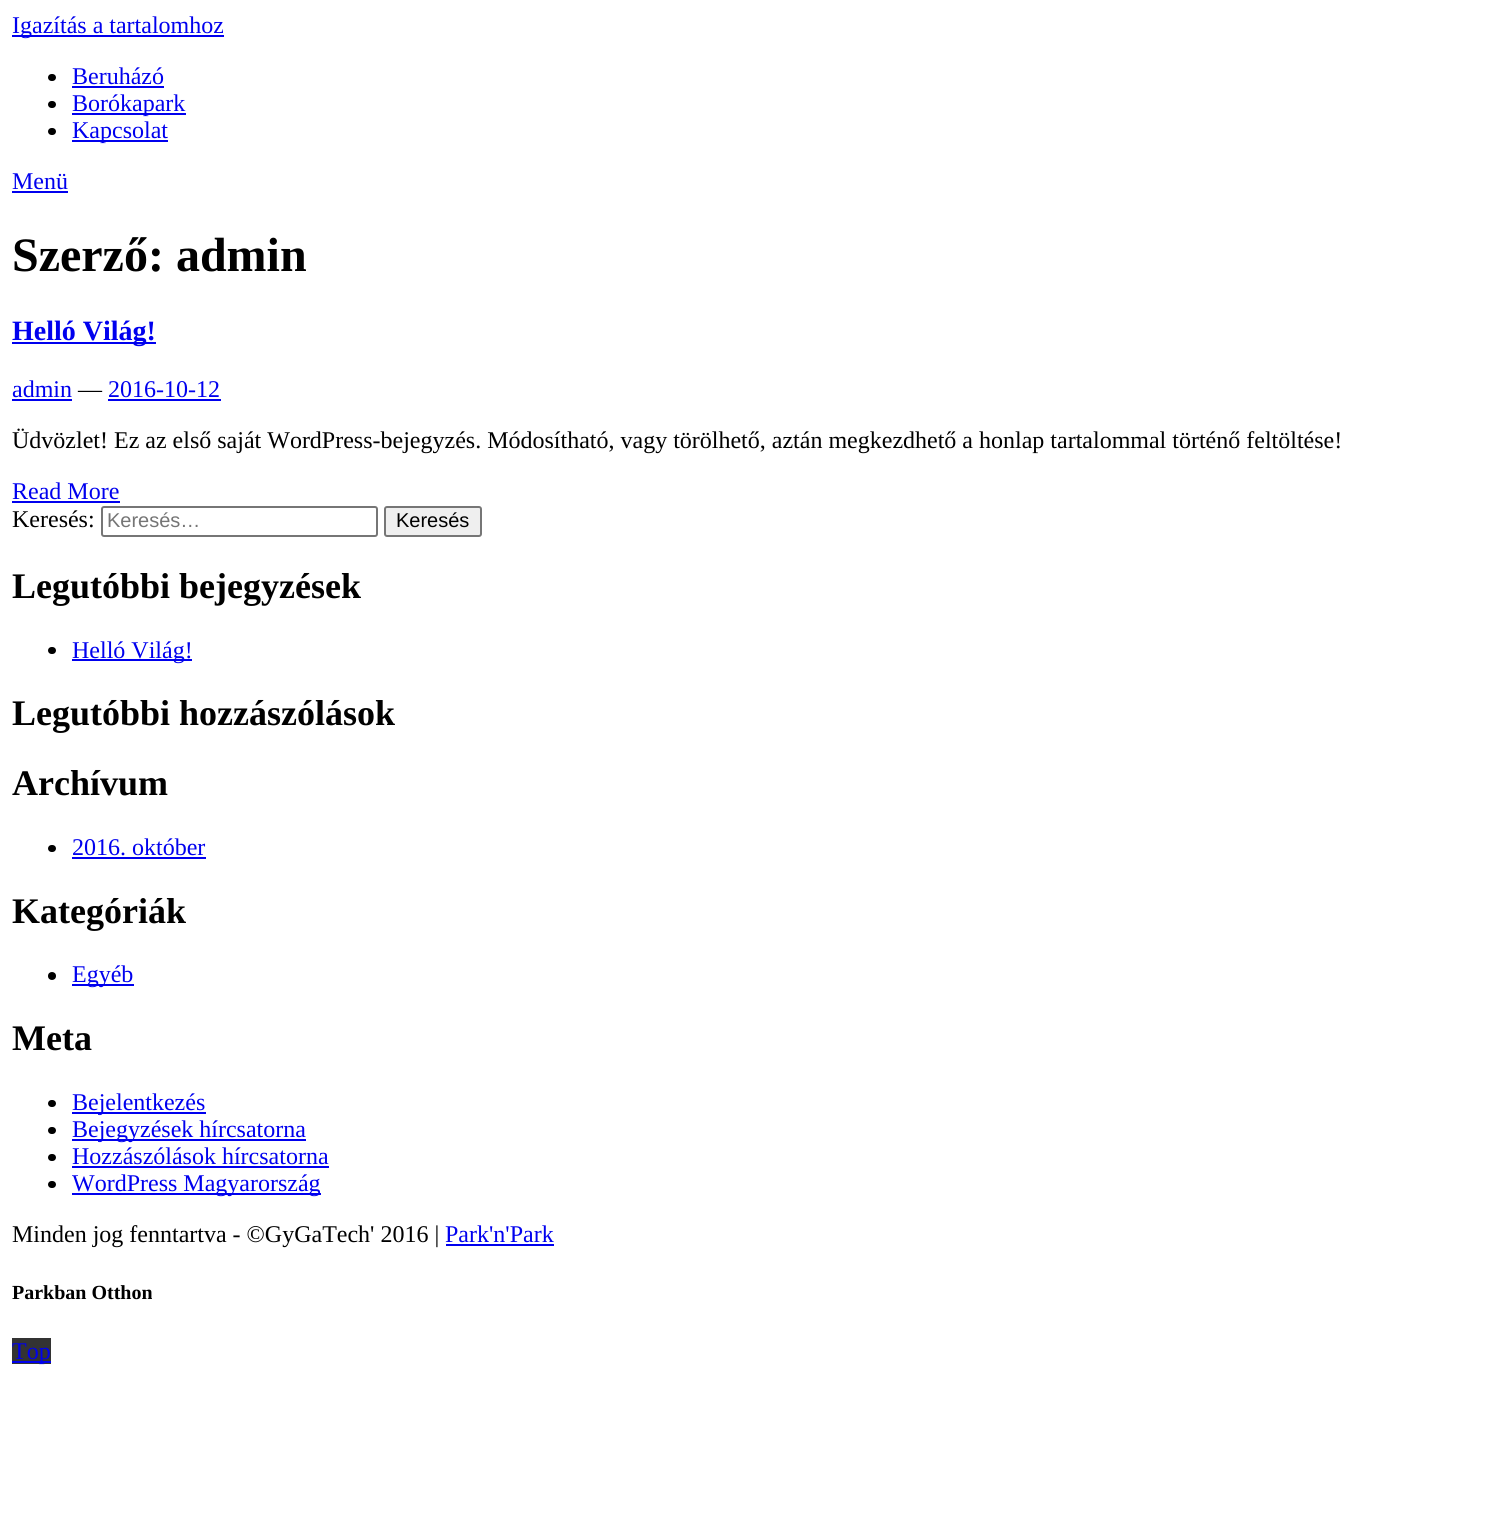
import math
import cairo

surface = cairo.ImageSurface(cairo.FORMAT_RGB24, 1505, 1518)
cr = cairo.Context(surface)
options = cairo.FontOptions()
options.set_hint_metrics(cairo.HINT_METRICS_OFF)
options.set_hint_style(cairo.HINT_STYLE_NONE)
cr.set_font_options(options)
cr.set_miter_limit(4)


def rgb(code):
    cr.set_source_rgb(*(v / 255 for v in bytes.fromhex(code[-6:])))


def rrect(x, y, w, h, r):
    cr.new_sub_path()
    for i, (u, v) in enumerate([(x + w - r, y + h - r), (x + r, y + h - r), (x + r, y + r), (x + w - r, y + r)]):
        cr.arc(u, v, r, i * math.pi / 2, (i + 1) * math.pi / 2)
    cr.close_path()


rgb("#ffffff")
cr.paint()
rgb("#0000ee")
cr.rectangle(12, 35, 212, 2)
cr.fill()
rgb("#000000")
rrect(48, 74, 8, 7, 3.5)
cr.fill()
rgb("#0000ee")
cr.rectangle(72, 86, 92, 2)
cr.fill()
rgb("#000000")
rrect(48, 101, 8, 7, 3.5)
cr.fill()
rgb("#0000ee")
cr.rectangle(72, 113, 114, 2)
cr.fill()
rgb("#000000")
rrect(48, 128, 8, 7, 3.5)
cr.fill()
for x, y, w, h, color in [
    (72, 140, 96, 2, "#0000ee"),
    (12, 191, 56, 2, "#0000ee"),
    (12, 342, 144, 2, "#0000ee"),
    (12, 399, 60, 2, "#0000ee"),
    (108, 399, 113, 2, "#0000ee"),
    (12, 501, 108, 2, "#0000ee"),
]:
    rgb(color)
    cr.rectangle(x, y, w, h)
    cr.fill()
rrect(102, 507, 275, 29, 2)
rgb("#767676")
cr.stroke()
rgb("#efefef")
rrect(385, 507, 96, 29, 2)
cr.fill_preserve()
rgb("#767676")
cr.stroke()
rgb("#000000")
rrect(48, 647, 8, 7, 3.5)
cr.fill()
rgb("#0000ee")
cr.rectangle(72, 659, 120, 2)
cr.fill()
rgb("#000000")
rrect(48, 845, 8, 7, 3.5)
cr.fill()
rgb("#0000ee")
cr.rectangle(72, 857, 134, 2)
cr.fill()
rgb("#000000")
cr.arc(52, 976, 4, 0, 2 * math.pi)
cr.fill()
rgb("#0000ee")
cr.rectangle(72, 984, 62, 2)
cr.fill()
rgb("#000000")
rrect(48, 1100, 8, 7, 3.5)
cr.fill()
rgb("#0000ee")
cr.rectangle(72, 1112, 134, 2)
cr.fill()
rgb("#000000")
rrect(48, 1127, 8, 7, 3.5)
cr.fill()
rgb("#0000ee")
cr.rectangle(72, 1139, 234, 2)
cr.fill()
rgb("#000000")
rrect(48, 1154, 8, 7, 3.5)
cr.fill()
rgb("#0000ee")
cr.rectangle(72, 1166, 257, 2)
cr.fill()
rgb("#000000")
rrect(48, 1181, 8, 7, 3.5)
cr.fill()
for x, y, w, h, color in [
    (72, 1193, 249, 2, "#0000ee"),
    (446, 1244, 108, 2, "#0000ee"),
    (12, 1338, 39, 26, "#333333"),
    (12, 1361, 39, 2, "#0000ee"),
]:
    rgb(color)
    cr.rectangle(x, y, w, h)
    cr.fill()
cr.select_font_face("Liberation Serif")
cr.set_font_size(24)
for x, y, s in [
    (12, 33, "Igazítás a tartalomhoz"),
    (72, 84, "Beruházó"),
    (72, 111, "Borókapark"),
    (72, 138, "Kapcsolat"),
    (12, 189, "Menü"),
]:
    cr.move_to(x, y)
    cr.show_text(s)
cr.select_font_face("Liberation Serif", cairo.FONT_SLANT_NORMAL, cairo.FONT_WEIGHT_BOLD)
cr.set_font_size(48)
rgb("#000000")
cr.move_to(12, 271)
cr.show_text("Szerző: admin")
cr.set_font_size(28)
rgb("#0000ee")
cr.move_to(12, 340)
cr.show_text("Helló Világ!")
cr.select_font_face("Liberation Serif")
cr.set_font_size(24)
cr.move_to(12, 397)
cr.show_text("admin")
rgb("#000000")
cr.move_to(78, 397)
cr.show_text("—")
rgb("#0000ee")
cr.move_to(108, 397)
cr.show_text("2016-10-12")
rgb("#000000")
cr.move_to(12, 448)
cr.show_text("Üdvözlet! Ez az első saját WordPress-bejegyzés. Módosítható, vagy törölhető, aztán megkezdhető a honlap tartalommal történő feltöltése!")
rgb("#0000ee")
cr.move_to(12, 499)
cr.show_text("Read More")
rgb("#000000")
cr.move_to(12, 527)
cr.show_text("Keresés:")
cr.select_font_face("Liberation Sans")
cr.set_font_size(20)
rgb("#757575")
cr.move_to(107, 527)
cr.show_text("Keresés…")
rgb("#000000")
cr.move_to(396, 527)
cr.show_text("Keresés")
cr.select_font_face("Liberation Serif", cairo.FONT_SLANT_NORMAL, cairo.FONT_WEIGHT_BOLD)
cr.set_font_size(36)
cr.move_to(12, 598)
cr.show_text("Legutóbbi bejegyzések")
cr.select_font_face("Liberation Serif")
cr.set_font_size(24)
rgb("#0000ee")
cr.move_to(72, 658)
cr.show_text("Helló Világ!")
cr.select_font_face("Liberation Serif", cairo.FONT_SLANT_NORMAL, cairo.FONT_WEIGHT_BOLD)
cr.set_font_size(36)
rgb("#000000")
cr.move_to(12, 725)
cr.show_text("Legutóbbi hozzászólások")
cr.move_to(12, 795)
cr.show_text("Archívum")
cr.select_font_face("Liberation Serif")
cr.set_font_size(24)
rgb("#0000ee")
cr.move_to(72, 855)
cr.show_text("2016. október")
cr.select_font_face("Liberation Serif", cairo.FONT_SLANT_NORMAL, cairo.FONT_WEIGHT_BOLD)
cr.set_font_size(36)
rgb("#000000")
cr.move_to(12, 923)
cr.show_text("Kategóriák")
cr.select_font_face("Liberation Serif")
cr.set_font_size(24)
rgb("#0000ee")
cr.move_to(72, 982)
cr.show_text("Egyéb")
cr.select_font_face("Liberation Serif", cairo.FONT_SLANT_NORMAL, cairo.FONT_WEIGHT_BOLD)
cr.set_font_size(36)
rgb("#000000")
cr.move_to(12, 1050)
cr.show_text("Meta")
cr.select_font_face("Liberation Serif")
cr.set_font_size(24)
rgb("#0000ee")
for x, y, s in [
    (72, 1110, "Bejelentkezés"),
    (72, 1137, "Bejegyzések hírcsatorna"),
    (72, 1164, "Hozzászólások hírcsatorna"),
    (72, 1191, "WordPress Magyarország"),
]:
    cr.move_to(x, y)
    cr.show_text(s)
rgb("#000000")
cr.move_to(12, 1242)
cr.show_text("Minden jog fenntartva - ©GyGaTech' 2016 |")
rgb("#0000ee")
cr.move_to(445, 1242)
cr.show_text("Park'n'Park")
cr.select_font_face("Liberation Serif", cairo.FONT_SLANT_NORMAL, cairo.FONT_WEIGHT_BOLD)
cr.set_font_size(20)
rgb("#000000")
cr.move_to(12, 1299)
cr.show_text("Parkban Otthon")
cr.select_font_face("Liberation Serif")
cr.set_font_size(24)
rgb("#0000ee")
cr.move_to(12, 1359)
cr.show_text("Top")
surface.write_to_png("page.png")
